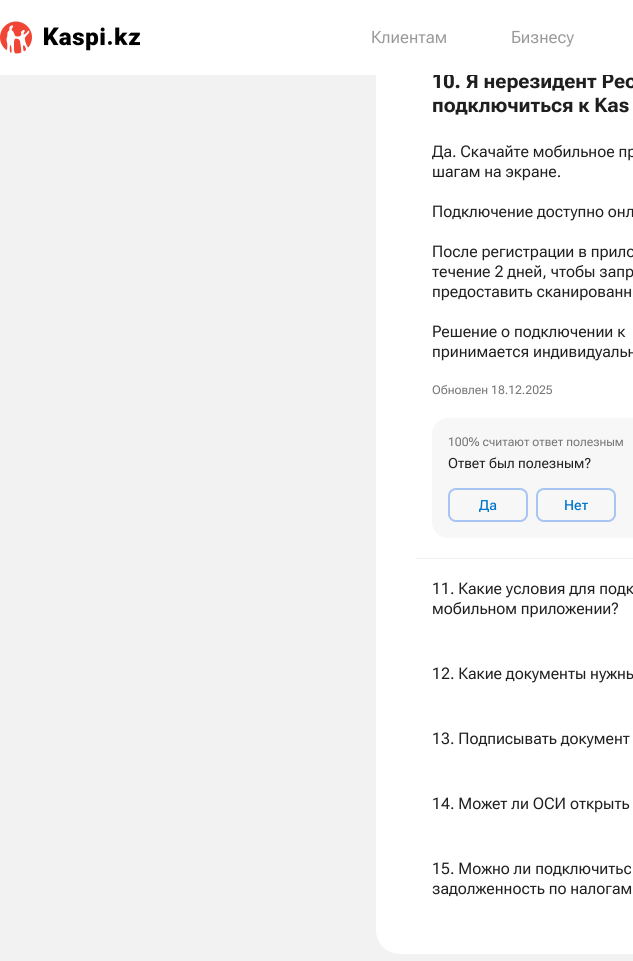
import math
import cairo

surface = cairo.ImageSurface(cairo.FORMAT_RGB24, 633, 961)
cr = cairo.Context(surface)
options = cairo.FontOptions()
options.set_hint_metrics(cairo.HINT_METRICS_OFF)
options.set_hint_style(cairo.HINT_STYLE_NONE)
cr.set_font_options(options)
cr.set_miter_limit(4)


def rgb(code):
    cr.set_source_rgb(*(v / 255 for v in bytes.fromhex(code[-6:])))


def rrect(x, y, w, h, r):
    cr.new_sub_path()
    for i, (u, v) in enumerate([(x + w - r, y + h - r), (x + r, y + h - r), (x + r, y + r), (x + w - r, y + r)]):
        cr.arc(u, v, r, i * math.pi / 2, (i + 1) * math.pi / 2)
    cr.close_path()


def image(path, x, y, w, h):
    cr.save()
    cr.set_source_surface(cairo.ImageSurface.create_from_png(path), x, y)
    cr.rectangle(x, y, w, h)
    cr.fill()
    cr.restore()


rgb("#f2f2f2")
cr.paint()
rgb("#ffffff")
rrect(376, -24, 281, 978, 24)
cr.fill()
rgb("#f2f2f2")
cr.rectangle(416, 558, 217, 1)
cr.fill()
rgb("#f7f7f7")
rrect(432, 418, 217, 120, 16)
cr.fill()
rrect(449, 489, 78, 32, 7)
rgb("#a7c4f2")
cr.stroke()
rrect(537, 489, 78, 32, 7)
cr.stroke()
cr.select_font_face("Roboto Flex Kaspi", cairo.FONT_SLANT_ITALIC, cairo.FONT_WEIGHT_BOLD)
cr.set_font_size(20)
rgb("#1f1f1f")
cr.move_to(432, 88)
cr.show_text("10. Я нерезидент Рес")
rgb("#ffffff")
cr.rectangle(0, 0, 613, 75)
cr.fill()
cr.select_font_face("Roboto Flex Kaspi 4", cairo.FONT_SLANT_ITALIC)
cr.set_font_size(17)
rgb("#999999")
cr.move_to(511, 43)
cr.show_text("Бизнесу")
cr.move_to(371, 43)
cr.show_text("Клиентам")
image("img/1.png", 0, 21, 140, 33)
cr.select_font_face("Roboto Flex Kaspi", cairo.FONT_SLANT_ITALIC, cairo.FONT_WEIGHT_BOLD)
cr.set_font_size(20)
rgb("#1f1f1f")
cr.move_to(432, 112)
cr.show_text("подключиться к Kas")
cr.select_font_face("Roboto Flex Kaspi", cairo.FONT_SLANT_ITALIC)
cr.set_font_size(16)
for x, y, s in [
    (432, 157, "Да. Скачайте мобильное пр"),
    (432, 177, "шагам на экране."),
    (432, 217, "Подключение доступно онл"),
    (432, 257, "После регистрации в прило"),
    (432, 277, "течение 2 дней, чтобы запр"),
    (432, 297, "предоставить сканированн"),
    (432, 337, "Решение о подключении к"),
    (432, 357, "принимается индивидуальн"),
]:
    cr.move_to(x, y)
    cr.show_text(s)
cr.select_font_face("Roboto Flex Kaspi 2", cairo.FONT_SLANT_ITALIC)
cr.set_font_size(12)
rgb("#757575")
cr.move_to(432, 394)
cr.show_text("Обновлен 18.12.2025")
cr.move_to(448, 446)
cr.show_text("100% считают ответ полезным")
cr.select_font_face("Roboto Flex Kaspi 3", cairo.FONT_SLANT_ITALIC)
cr.set_font_size(14)
rgb("#1f1f1f")
cr.move_to(448, 468)
cr.show_text("Ответ был полезным?")
cr.select_font_face("Roboto Flex Kaspi Medium", cairo.FONT_SLANT_ITALIC)
rgb("#0075ca")
cr.move_to(479, 510)
cr.show_text("Да")
cr.move_to(564, 510)
cr.show_text("Нет")
cr.select_font_face("Roboto Flex Kaspi", cairo.FONT_SLANT_ITALIC)
cr.set_font_size(16)
rgb("#1f1f1f")
for x, y, s in [
    (432, 594, "11. Какие условия для подк"),
    (432, 614, "мобильном приложении?"),
    (432, 679, "12. Какие документы нужны"),
    (432, 744, "13. Подписывать документ"),
    (432, 809, "14. Может ли ОСИ открыть"),
    (432, 874, "15. Можно ли подключитьс"),
    (432, 894, "задолженность по налогам"),
]:
    cr.move_to(x, y)
    cr.show_text(s)
surface.write_to_png("page.png")
